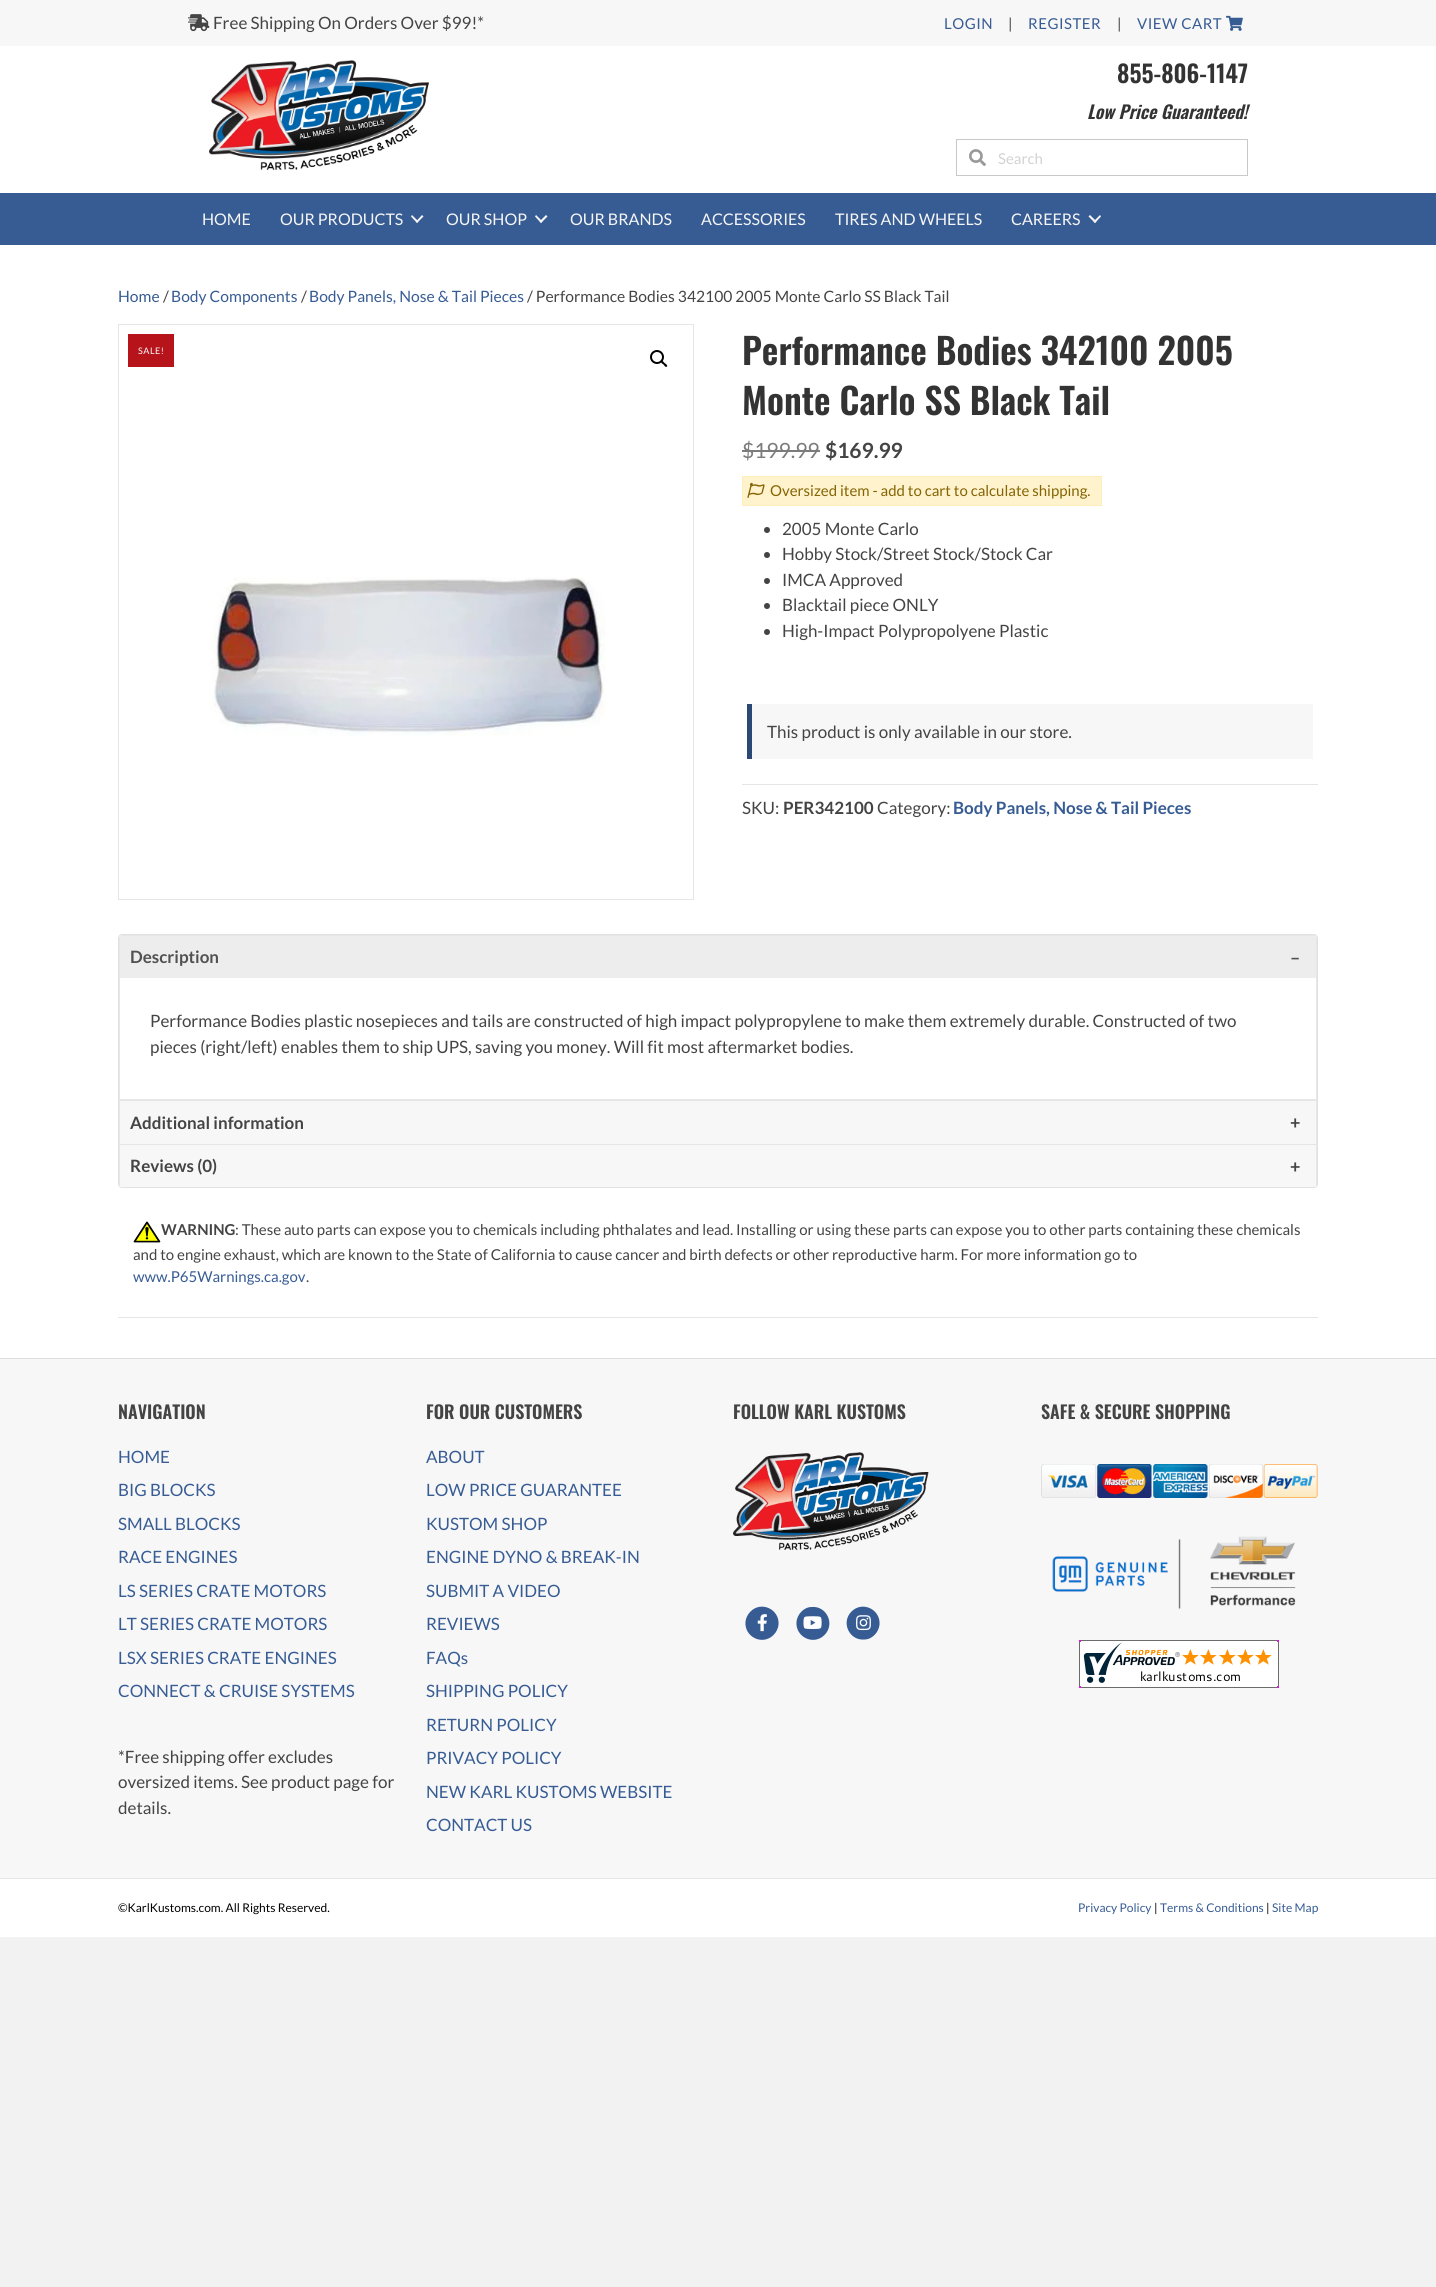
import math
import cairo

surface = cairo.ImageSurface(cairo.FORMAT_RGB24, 1436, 2287)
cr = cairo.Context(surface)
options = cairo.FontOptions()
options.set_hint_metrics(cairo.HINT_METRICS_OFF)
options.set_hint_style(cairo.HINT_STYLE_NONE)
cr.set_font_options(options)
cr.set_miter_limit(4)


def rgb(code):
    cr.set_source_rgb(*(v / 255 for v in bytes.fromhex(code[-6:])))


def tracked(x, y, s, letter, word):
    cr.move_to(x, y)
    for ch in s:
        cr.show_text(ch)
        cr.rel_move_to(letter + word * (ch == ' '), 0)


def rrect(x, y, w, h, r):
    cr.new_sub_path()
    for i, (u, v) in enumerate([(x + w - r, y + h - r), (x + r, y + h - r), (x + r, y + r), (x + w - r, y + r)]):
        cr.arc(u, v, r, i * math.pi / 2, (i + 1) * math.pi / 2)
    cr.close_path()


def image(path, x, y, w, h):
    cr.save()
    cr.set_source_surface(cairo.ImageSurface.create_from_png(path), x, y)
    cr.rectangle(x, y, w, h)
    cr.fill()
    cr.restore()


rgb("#f2f2f2")
cr.paint()
rgb("#f7f7f7")
cr.rectangle(0, 0, 1436, 46)
cr.fill()
image("img/1.png", 188, 14, 22, 18)
image("img/2.png", 1226, 15, 17, 16)
rgb("#ffffff")
cr.rectangle(0, 46, 1436, 147)
cr.fill()
image("img/3.png", 209, 60, 220, 110)
cr.rectangle(956.5, 139.5, 291, 36)
rgb("#c9c9c9")
cr.set_line_width(1)
cr.stroke()
image("img/4.png", 969, 149, 17, 17)
rgb("#375c94")
cr.rectangle(0, 193, 1436, 52)
cr.fill()
rgb("#f5f5f5")
cr.new_path()
cr.move_to(422, 215)
cr.line_to(423.5, 216.5)
cr.line_to(417, 223)
cr.line_to(416, 221.5)
cr.close_path()
cr.fill()
cr.new_path()
cr.move_to(412, 215)
cr.line_to(418.5, 221.5)
cr.line_to(417, 223)
cr.line_to(411, 216.5)
cr.close_path()
cr.fill()
cr.new_path()
cr.move_to(546, 215)
cr.line_to(547.5, 216.5)
cr.line_to(541, 223)
cr.line_to(539.5, 221.5)
cr.close_path()
cr.fill()
cr.new_path()
cr.move_to(536, 215)
cr.line_to(542.5, 221.5)
cr.line_to(541, 223)
cr.line_to(535, 216.5)
cr.close_path()
cr.fill()
cr.new_path()
cr.move_to(1100, 215)
cr.line_to(1101, 216.5)
cr.line_to(1095, 223)
cr.line_to(1093.5, 221.5)
cr.close_path()
cr.fill()
cr.new_path()
cr.move_to(1090, 215)
cr.line_to(1096.5, 221.5)
cr.line_to(1095, 223)
cr.line_to(1088.5, 216.5)
cr.close_path()
cr.fill()
rgb("#ffffff")
cr.rectangle(0, 245, 1436, 1113)
cr.fill()
cr.rectangle(118.5, 324.5, 575, 575)
rgb("#e6e6e6")
cr.stroke()
image("img/5.png", 209, 577, 397, 159)
cr.arc(657, 357, 6, 0, 2 * math.pi)
rgb("#000000")
cr.set_line_width(2)
cr.stroke()
cr.new_path()
cr.move_to(661, 361)
cr.curve_to(662.5, 360, 664, 362.5, 664.5, 363)
cr.curve_to(665.5, 363.5, 668, 365.5, 667, 366.5)
cr.curve_to(665.5, 368, 664, 365, 663.5, 364.5)
cr.curve_to(662.5, 364, 660, 362, 661, 361)
cr.close_path()
cr.fill()
rgb("#7c7c7c")
cr.rectangle(742, 450, 78, 2)
cr.fill()
rgb("#fff3cd")
cr.rectangle(742.5, 476.5, 359, 29)
cr.fill_preserve()
rgb("#ffeeba")
cr.set_line_width(1)
cr.stroke()
image("img/6.png", 747, 482, 18, 16)
rgb("#444444")
cr.arc(767, 530, 3, 0, 2 * math.pi)
cr.fill()
cr.arc(767, 555, 3, 0, 2 * math.pi)
cr.fill()
cr.arc(767, 581, 3, 0, 2 * math.pi)
cr.fill()
cr.arc(767, 606, 3, 0, 2 * math.pi)
cr.fill()
cr.arc(767, 632, 3, 0, 2 * math.pi)
cr.fill()
for x, y, w, h, color in [
    (752, 704, 561, 55, "#f7f7f7"),
    (747, 704, 5, 55, "#2c4976"),
    (742, 784, 576, 1, "#e6e6e6"),
    (128, 334, 46, 33, "#b6131b"),
]:
    rgb(color)
    cr.rectangle(x, y, w, h)
    cr.fill()
rrect(118.5, 934.5, 1199, 253, 3.5)
rgb("#e2e2e2")
cr.stroke()
cr.save()
rrect(119, 935, 1198, 252, 3)
cr.clip()
for x, y, w, h, color in [
    (119, 935, 1198, 1, "#e6e6e6"),
    (1316, 935, 1, 43, "#e6e6e6"),
    (119, 935, 1, 43, "#e6e6e6"),
]:
    rgb(color)
    cr.rectangle(x, y, w, h)
    cr.fill()
cr.restore()
for x, y, w, h, color in [
    (120, 936, 1196, 42, "#ededed"),
    (120, 1101, 1196, 43, "#f7f7f7"),
    (1316, 978, 1, 122, "#e6e6e6"),
    (119, 1099, 1198, 2, "#e6e6e6"),
    (1316, 1100, 1, 44, "#e6e6e6"),
]:
    rgb(color)
    cr.rectangle(x, y, w, h)
    cr.fill()
rgb("#f7f7f7")
cr.new_path()
cr.move_to(119, 1144)
cr.line_to(1317, 1144)
cr.line_to(1317, 1184)
cr.curve_to(1317, 1185.5, 1315.5, 1187, 1314, 1187)
cr.line_to(122, 1187)
cr.curve_to(120.5, 1187, 119, 1185.5, 119, 1184)
cr.close_path()
cr.fill()
rgb("#e6e6e6")
cr.rectangle(119, 1144, 1198, 1)
cr.fill()
cr.save()
rrect(119, 935, 1198, 252, 3)
cr.clip()
cr.rectangle(1316, 1144, 1, 43)
cr.fill()
cr.rectangle(119, 1144, 1, 43)
cr.fill()
cr.restore()
cr.rectangle(118, 1317, 1200, 1)
cr.fill()
cr.rectangle(119, 978, 1, 166)
cr.fill()
image("img/7.png", 133, 1221, 28, 22)
rgb("#f7f7f7")
cr.rectangle(0, 1359, 1436, 519)
cr.fill()
rgb("#dedede")
cr.rectangle(0, 1358, 1436, 1)
cr.fill()
image("img/8.png", 733, 1452, 196, 98)
rgb("#375c94")
cr.new_path()
cr.move_to(750.5, 1611.5)
cr.curve_to(761.5, 1600.5, 780, 1609.5, 778.5, 1625)
cr.curve_to(778, 1628.5, 776.5, 1632, 773.5, 1635)
cr.curve_to(762.5, 1646, 744, 1637, 745.5, 1621.5)
cr.curve_to(746, 1618, 747.5, 1614.5, 750.5, 1611.5)
cr.close_path()
cr.fill()
image("img/9.png", 757, 1614, 10, 18)
cr.new_path()
cr.move_to(801.5, 1611.5)
cr.curve_to(804, 1609, 807.5, 1607, 811.5, 1607)
cr.curve_to(826.5, 1605.5, 835.5, 1624, 824.5, 1635)
cr.curve_to(813.5, 1646, 795, 1637, 796.5, 1621.5)
cr.curve_to(797, 1618, 798.5, 1614.5, 801.5, 1611.5)
cr.close_path()
cr.fill()
image("img/10.png", 803, 1616, 19, 13)
cr.new_path()
cr.move_to(851.5, 1611.5)
cr.curve_to(862.5, 1600.5, 881, 1609.5, 879.5, 1625)
cr.curve_to(879, 1628.5, 877.5, 1632, 874.5, 1635)
cr.curve_to(872, 1637.5, 868.5, 1639.5, 864.5, 1639.5)
cr.curve_to(849.5, 1641, 840.5, 1622.5, 851.5, 1611.5)
cr.close_path()
cr.fill()
image("img/11.png", 856, 1615, 15, 16)
image("img/12.png", 1041, 1464, 277, 34)
image("img/13.png", 1052, 1536, 244, 73)
image("img/14.png", 1079, 1640, 200, 48)
rgb("#ffffff")
cr.rectangle(0, 1879, 1436, 58)
cr.fill()
rgb("#e6e6e6")
cr.rectangle(0, 1878, 1436, 1)
cr.fill()
cr.select_font_face("Lato")
cr.set_font_size(17)
rgb("#444444")
cr.move_to(213, 29)
cr.show_text("Free Shipping On Orders Over $99!*")
cr.set_font_size(15)
rgb("#375c94")
tracked(944, 29, "LOGIN", 0.5, 0)
rgb("#444444")
tracked(1008, 29, "|", 0.5, 0)
rgb("#375c94")
tracked(1028, 29, "REGISTER", 0.5, 0)
rgb("#444444")
tracked(1117, 29, "|", 0.5, 0)
rgb("#375c94")
tracked(1137, 29, "VIEW CART", 0.5, 0)
cr.select_font_face("Oswald SemiBold")
cr.set_font_size(24)
rgb("#333333")
cr.move_to(1117, 83)
cr.show_text("855-806-1147")
cr.select_font_face("Oswald SemiBold", cairo.FONT_SLANT_ITALIC)
cr.set_font_size(18)
cr.move_to(1087, 119)
cr.show_text("Low Price Guaranteed!")
cr.select_font_face("Lato")
cr.set_font_size(15)
rgb("#d2d2d2")
cr.move_to(998, 164)
cr.show_text("Search")
cr.set_font_size(16)
rgb("#f5f5f5")
for x, y, s in [
    (202, 225, "HOME"),
    (280, 225, "OUR PRODUCTS"),
    (446, 225, "OUR SHOP"),
    (570, 225, "OUR BRANDS"),
    (701, 225, "ACCESSORIES"),
    (835, 225, "TIRES AND WHEELS"),
    (1011, 225, "CAREERS"),
]:
    cr.move_to(x, y)
    cr.show_text(s)
cr.set_font_size(15.65)
rgb("#375c94")
cr.move_to(118, 302)
cr.show_text("Home")
rgb("#444444")
cr.move_to(163, 302)
cr.show_text("/")
rgb("#375c94")
cr.move_to(171, 302)
cr.show_text("Body Components")
rgb("#444444")
cr.move_to(301, 302)
cr.show_text("/")
rgb("#375c94")
cr.move_to(309, 302)
cr.show_text("Body Panels, Nose & Tail Pieces")
rgb("#444444")
cr.move_to(527, 302)
cr.show_text("/ Performance Bodies 342100 2005 Monte Carlo SS Black Tail")
cr.select_font_face("Oswald SemiBold")
cr.set_font_size(36)
rgb("#333333")
cr.move_to(742, 365)
cr.show_text("Performance Bodies 342100 2005")
cr.move_to(742, 415)
cr.show_text("Monte Carlo SS Black Tail")
cr.select_font_face("Lato")
cr.set_font_size(21)
rgb("#7c7c7c")
cr.move_to(742, 458)
cr.show_text("$199.99")
cr.select_font_face("Lato", cairo.FONT_SLANT_NORMAL, cairo.FONT_WEIGHT_BOLD)
rgb("#444444")
cr.move_to(825, 458)
cr.show_text("$169.99")
cr.select_font_face("Lato")
cr.set_font_size(15)
rgb("#856404")
cr.move_to(770, 496)
cr.show_text("Oversized item - add to cart to calculate shipping.")
cr.set_font_size(17)
rgb("#444444")
for x, y, s in [
    (782, 535, "2005 Monte Carlo"),
    (782, 560, "Hobby Stock/Street Stock/Stock Car"),
    (782, 586, "IMCA Approved"),
    (782, 611, "Blacktail piece ONLY"),
    (782, 637, "High-Impact Polypropolyene Plastic"),
    (767, 738, "This product is only available in our store."),
    (742, 814, "SKU:"),
]:
    cr.move_to(x, y)
    cr.show_text(s)
cr.select_font_face("Lato", cairo.FONT_SLANT_NORMAL, cairo.FONT_WEIGHT_BOLD)
cr.move_to(783, 814)
cr.show_text("PER342100")
cr.select_font_face("Lato")
cr.move_to(877, 814)
cr.show_text("Category:")
cr.select_font_face("Lato", cairo.FONT_SLANT_NORMAL, cairo.FONT_WEIGHT_BOLD)
rgb("#375c94")
cr.move_to(953, 814)
cr.show_text("Body Panels, Nose & Tail Pieces")
cr.select_font_face("Lato")
cr.set_font_size(9)
rgb("#ffffff")
tracked(138, 354, "SALE!", 0.5, 0)
cr.select_font_face("Lato", cairo.FONT_SLANT_NORMAL, cairo.FONT_WEIGHT_BOLD)
cr.set_font_size(17)
rgb("#515151")
cr.move_to(130, 963)
cr.show_text("Description")
cr.set_font_size(18)
cr.move_to(1290, 964)
cr.show_text("–")
cr.set_font_size(17)
rgb("#444444")
cr.move_to(130, 1129)
cr.show_text("Additional information")
cr.set_font_size(18)
cr.move_to(1290, 1129)
cr.show_text("+")
cr.set_font_size(17)
cr.move_to(130, 1172)
cr.show_text("Reviews (0)")
cr.set_font_size(18)
cr.move_to(1290, 1173)
cr.show_text("+")
cr.select_font_face("Lato")
cr.set_font_size(17)
cr.move_to(150, 1027)
cr.show_text("Performance Bodies plastic nosepieces and tails are constructed of high impact polypropylene to make them extremely durable. Constructed of two")
cr.move_to(150, 1053)
cr.show_text("pieces (right/left) enables them to ship UPS, saving you money. Will fit most aftermarket bodies.")
cr.select_font_face("Lato", cairo.FONT_SLANT_NORMAL, cairo.FONT_WEIGHT_BOLD)
cr.set_font_size(15)
cr.move_to(161, 1235)
cr.show_text("WARNING")
cr.select_font_face("Lato")
cr.move_to(235, 1235)
cr.show_text(": These auto parts can expose you to chemicals including phthalates and lead. Installing or using these parts can expose you to other parts containing these chemicals")
cr.move_to(133, 1260)
cr.show_text("and to engine exhaust, which are known to the State of California to cause cancer and birth defects or other reproductive harm. For more information go to")
rgb("#375c94")
cr.move_to(133, 1282)
cr.show_text("www.P65Warnings.ca.gov")
rgb("#444444")
cr.move_to(306, 1282)
cr.show_text(".")
cr.select_font_face("Oswald SemiBold")
cr.set_font_size(18)
cr.move_to(118, 1419)
cr.show_text("NAVIGATION")
cr.select_font_face("Lato")
cr.set_font_size(17)
rgb("#375c94")
for x, y, s in [
    (118, 1463, "HOME"),
    (118, 1496, "BIG BLOCKS"),
    (118, 1530, "SMALL BLOCKS"),
    (118, 1563, "RACE ENGINES"),
    (118, 1597, "LS SERIES CRATE MOTORS"),
    (118, 1630, "LT SERIES CRATE MOTORS"),
    (118, 1664, "LSX SERIES CRATE ENGINES"),
    (118, 1697, "CONNECT & CRUISE SYSTEMS"),
]:
    cr.move_to(x, y)
    cr.show_text(s)
rgb("#444444")
for x, y, s in [
    (118, 1763, "*Free shipping offer excludes"),
    (118, 1788, "oversized items. See product page for"),
    (118, 1814, "details."),
]:
    cr.move_to(x, y)
    cr.show_text(s)
cr.select_font_face("Oswald SemiBold")
cr.set_font_size(18)
cr.move_to(426, 1419)
cr.show_text("FOR OUR CUSTOMERS")
cr.select_font_face("Lato")
cr.set_font_size(17)
rgb("#375c94")
for x, y, s in [
    (426, 1463, "ABOUT"),
    (426, 1496, "LOW PRICE GUARANTEE"),
    (426, 1530, "KUSTOM SHOP"),
    (426, 1563, "ENGINE DYNO & BREAK-IN"),
    (426, 1597, "SUBMIT A VIDEO"),
    (426, 1630, "REVIEWS"),
    (426, 1664, "FAQs"),
    (426, 1697, "SHIPPING POLICY"),
    (426, 1731, "RETURN POLICY"),
    (426, 1764, "PRIVACY POLICY"),
    (426, 1798, "NEW KARL KUSTOMS WEBSITE"),
    (426, 1831, "CONTACT US"),
]:
    cr.move_to(x, y)
    cr.show_text(s)
cr.select_font_face("Oswald SemiBold")
cr.set_font_size(18)
rgb("#444444")
cr.move_to(733, 1419)
cr.show_text("FOLLOW KARL KUSTOMS")
cr.move_to(1041, 1419)
cr.show_text("SAFE & SECURE SHOPPING")
cr.select_font_face("Lato")
cr.set_font_size(12)
rgb("#000000")
cr.move_to(118, 1912)
cr.show_text("©KarlKustoms.com. All Rights Reserved.")
rgb("#375c94")
cr.move_to(1078, 1912)
cr.show_text("Privacy Policy")
rgb("#000000")
cr.move_to(1154, 1912)
cr.show_text("|")
rgb("#375c94")
cr.move_to(1160, 1912)
cr.show_text("Terms & Conditions")
rgb("#000000")
cr.move_to(1266, 1912)
cr.show_text("|")
rgb("#375c94")
cr.move_to(1272, 1912)
cr.show_text("Site Map")
surface.write_to_png("page.png")
